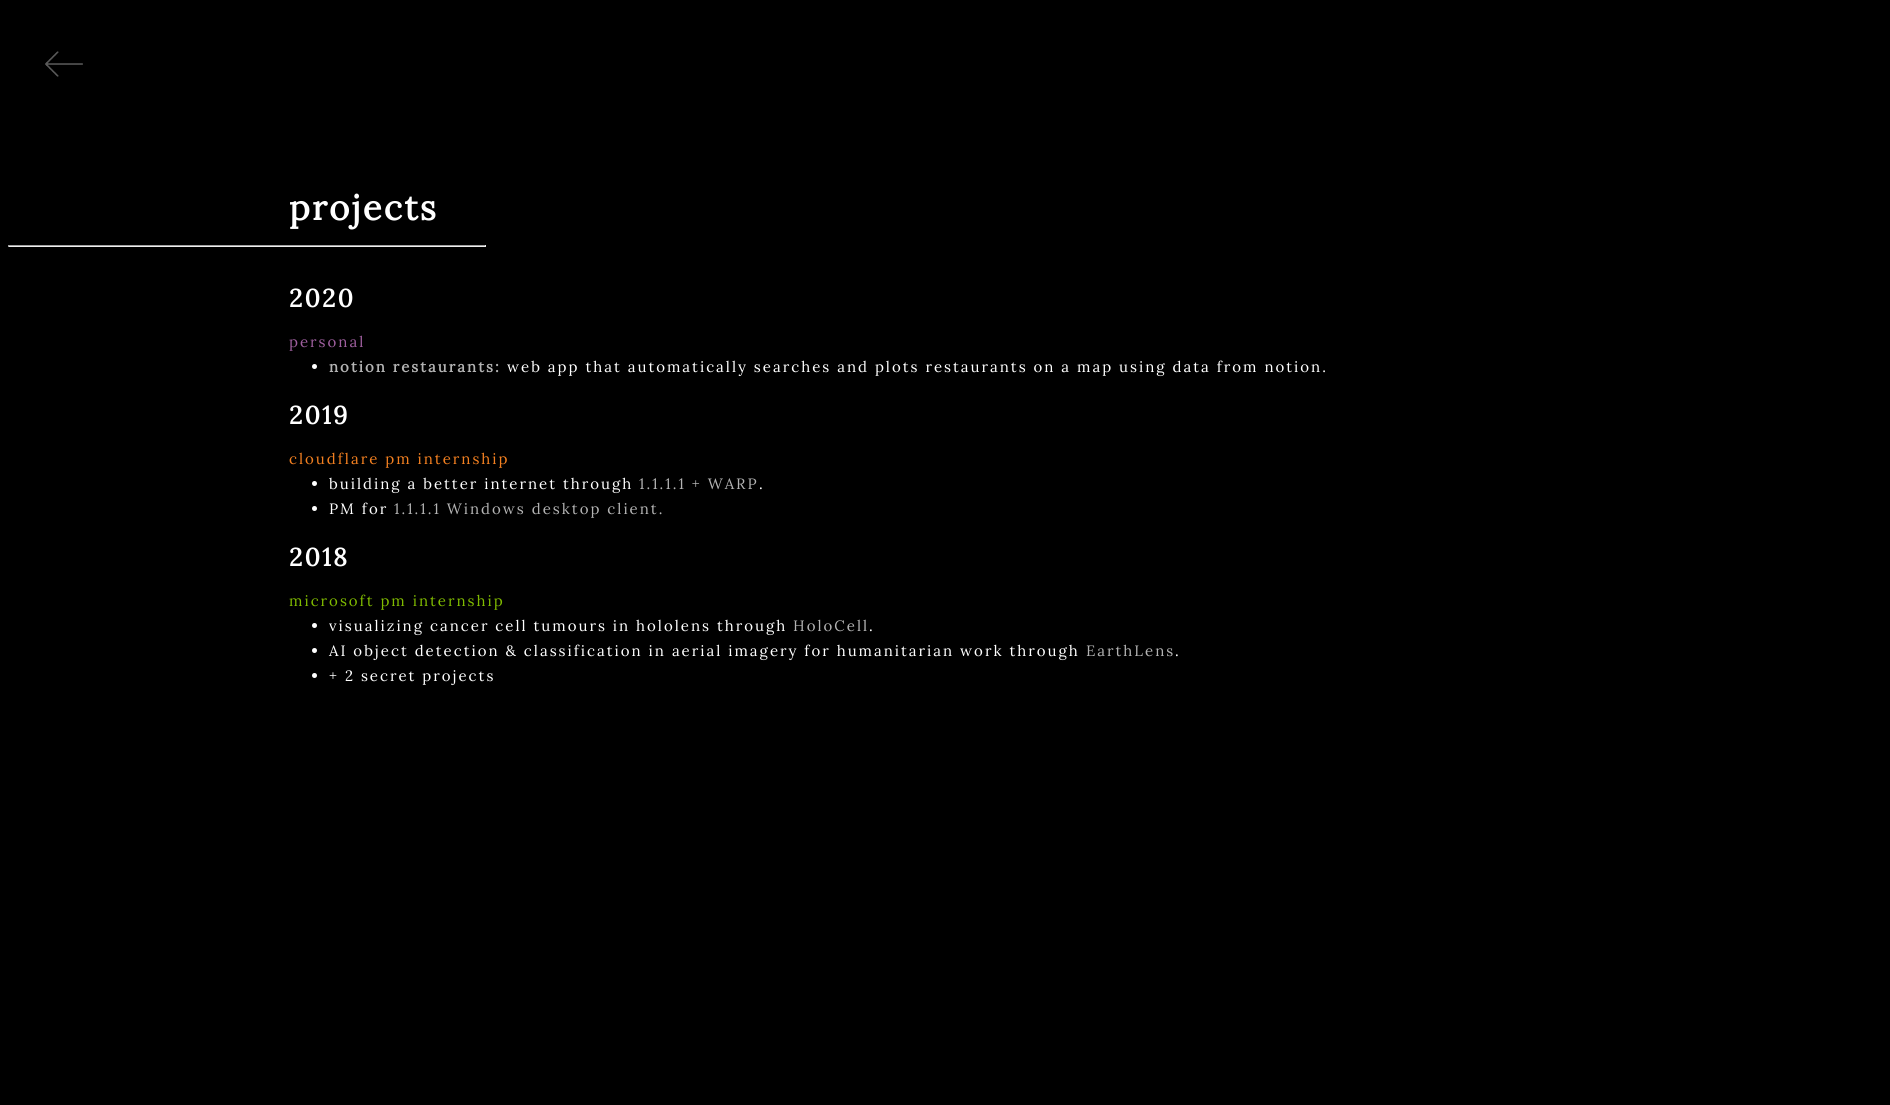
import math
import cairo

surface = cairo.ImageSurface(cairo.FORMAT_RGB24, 1890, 1105)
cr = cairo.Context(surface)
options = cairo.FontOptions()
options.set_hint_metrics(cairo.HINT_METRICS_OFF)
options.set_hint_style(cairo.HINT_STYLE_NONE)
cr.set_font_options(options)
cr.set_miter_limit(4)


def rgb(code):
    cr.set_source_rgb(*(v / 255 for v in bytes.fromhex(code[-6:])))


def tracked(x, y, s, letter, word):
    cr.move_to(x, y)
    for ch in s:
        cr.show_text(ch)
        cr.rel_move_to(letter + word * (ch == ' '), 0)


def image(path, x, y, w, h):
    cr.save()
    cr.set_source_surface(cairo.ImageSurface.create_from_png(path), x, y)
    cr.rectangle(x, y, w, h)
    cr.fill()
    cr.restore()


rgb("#000000")
cr.paint()
image("img/1.png", 45, 51, 38, 26)
for x, y, w, h, color in [
    (8, 245, 478, 1, "#9f9f9f"),
    (485, 245, 1, 2, "#eeeeee"),
    (8, 246, 478, 1, "#eeeeee"),
    (8, 245, 1, 2, "#9f9f9f"),
]:
    rgb(color)
    cr.rectangle(x, y, w, h)
    cr.fill()
rgb("#ffffff")
cr.arc(314.5, 366.5, 2.5, 0, 2 * math.pi)
cr.fill()
cr.arc(314.5, 483.5, 2.5, 0, 2 * math.pi)
cr.fill()
cr.arc(314.5, 508.5, 2.5, 0, 2 * math.pi)
cr.fill()
cr.arc(314.5, 625.5, 2.5, 0, 2 * math.pi)
cr.fill()
cr.arc(314.5, 650.5, 2.5, 0, 2 * math.pi)
cr.fill()
cr.arc(314.5, 675.5, 2.5, 0, 2 * math.pi)
cr.fill()
cr.select_font_face("Lora", cairo.FONT_SLANT_NORMAL, cairo.FONT_WEIGHT_BOLD)
cr.set_font_size(35)
tracked(289, 220, "projects", 2, 0)
cr.set_font_size(25)
tracked(289, 307, "2020", 2, 0)
cr.select_font_face("Lora")
cr.set_font_size(15)
rgb("#9f5f9f")
tracked(289, 347, "personal", 2, 0)
cr.select_font_face("Lora", cairo.FONT_SLANT_NORMAL, cairo.FONT_WEIGHT_BOLD)
rgb("#b3b3b3")
tracked(329, 372, "notion restaurants:", 2, 0)
cr.select_font_face("Lora")
rgb("#ffffff")
tracked(507, 372, "web app that automatically searches and plots restaurants on a map using data from notion.", 2, 0)
cr.select_font_face("Lora", cairo.FONT_SLANT_NORMAL, cairo.FONT_WEIGHT_BOLD)
cr.set_font_size(25)
tracked(289, 424, "2019", 2, 0)
cr.select_font_face("Lora")
cr.set_font_size(15)
rgb("#f38020")
tracked(289, 464, "cloudflare pm internship", 2, 0)
rgb("#ffffff")
tracked(329, 489, "building a better internet through", 2, 0)
rgb("#b3b3b3")
tracked(639, 489, "1.1.1.1 + WARP", 2, 0)
rgb("#ffffff")
tracked(759, 489, ".", 2, 0)
tracked(329, 514, "PM for", 2, 0)
rgb("#b3b3b3")
tracked(394, 514, "1.1.1.1 Windows desktop client.", 2, 0)
cr.select_font_face("Lora", cairo.FONT_SLANT_NORMAL, cairo.FONT_WEIGHT_BOLD)
cr.set_font_size(25)
rgb("#ffffff")
tracked(289, 566, "2018", 2, 0)
cr.select_font_face("Lora")
cr.set_font_size(15)
rgb("#7fba00")
tracked(289, 606, "microsoft pm internship", 2, 0)
rgb("#ffffff")
tracked(329, 631, "visualizing cancer cell tumours in hololens through", 2, 0)
rgb("#b3b3b3")
tracked(793, 631, "HoloCell", 2, 0)
rgb("#ffffff")
tracked(869, 631, ".", 2, 0)
tracked(329, 656, "AI object detection & classification in aerial imagery for humanitarian work through", 2, 0)
rgb("#b3b3b3")
tracked(1086, 656, "EarthLens", 2, 0)
rgb("#ffffff")
tracked(1175, 656, ".", 2, 0)
tracked(329, 681, "+ 2 secret projects", 2, 0)
surface.write_to_png("page.png")
